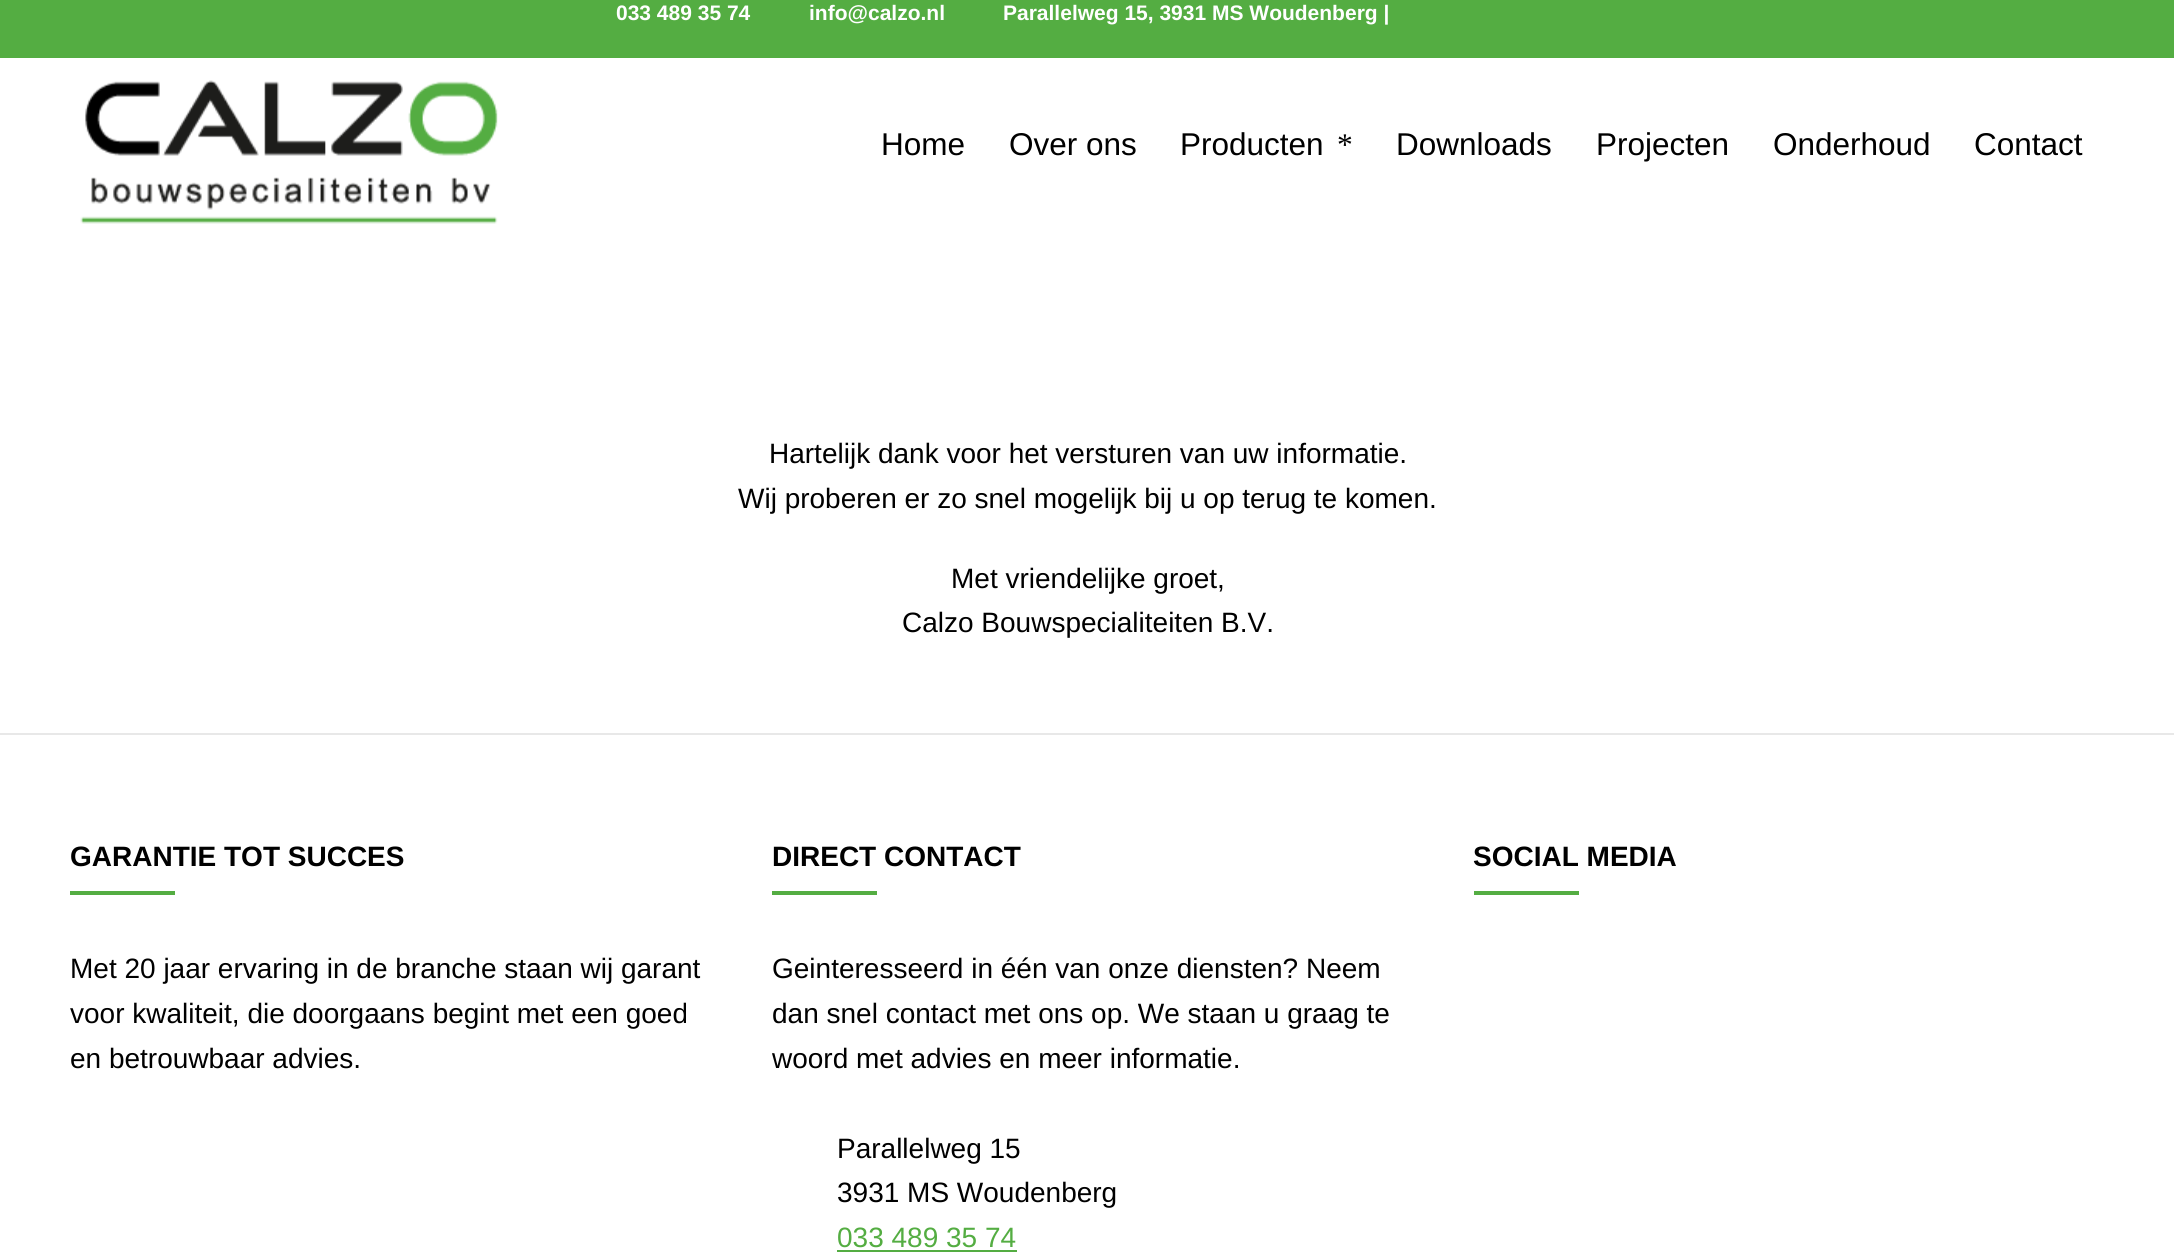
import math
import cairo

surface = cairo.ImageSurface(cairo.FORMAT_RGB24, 2174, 1252)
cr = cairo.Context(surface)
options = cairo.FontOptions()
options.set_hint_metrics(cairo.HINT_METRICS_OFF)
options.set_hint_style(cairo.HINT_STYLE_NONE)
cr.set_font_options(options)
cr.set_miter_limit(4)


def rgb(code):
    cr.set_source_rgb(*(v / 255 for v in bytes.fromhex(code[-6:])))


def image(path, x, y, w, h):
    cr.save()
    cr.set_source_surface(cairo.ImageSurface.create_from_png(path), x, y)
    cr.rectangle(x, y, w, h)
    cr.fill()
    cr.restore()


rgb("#ffffff")
cr.paint()
rgb("#54ad42")
cr.rectangle(0, 0, 2174, 58)
cr.fill()
image("img/1.png", 80, 80, 418, 144)
for x, y, w, h, color in [
    (0, 733, 2174, 2, "#e8e8e8"),
    (70, 891, 105, 4, "#54ad42"),
    (772, 891, 105, 4, "#54ad42"),
    (837, 1250, 180, 2, "#54ad42"),
    (1474, 891, 105, 4, "#54ad42"),
]:
    rgb(color)
    cr.rectangle(x, y, w, h)
    cr.fill()
cr.select_font_face("Liberation Sans", cairo.FONT_SLANT_NORMAL, cairo.FONT_WEIGHT_BOLD)
cr.set_font_size(21)
rgb("#ffffff")
for x, y, s in [
    (616, 20, "033 489 35 74"),
    (809, 20, "info@calzo.nl"),
    (1003, 20, "Parallelweg 15, 3931 MS Woudenberg |"),
]:
    cr.move_to(x, y)
    cr.show_text(s)
cr.select_font_face("Liberation Sans")
cr.set_font_size(31.5)
rgb("#000000")
for x, y, s in [
    (881, 155, "Home"),
    (1009, 155, "Over ons"),
    (1180, 155, "Producten"),
]:
    cr.move_to(x, y)
    cr.show_text(s)
cr.select_font_face("Liberation Serif")
cr.move_to(1337, 155)
cr.show_text("*")
cr.select_font_face("Liberation Sans")
for x, y, s in [
    (1396, 155, "Downloads"),
    (1596, 155, "Projecten"),
    (1773, 155, "Onderhoud"),
    (1974, 155, "Contact"),
]:
    cr.move_to(x, y)
    cr.show_text(s)
cr.set_font_size(28)
for x, y, s in [
    (769, 463, "Hartelijk dank voor het versturen van uw informatie."),
    (738, 508, "Wij proberen er zo snel mogelijk bij u op terug te komen."),
    (951, 588, "Met vriendelijke groet,"),
    (902, 632, "Calzo Bouwspecialiteiten B.V."),
]:
    cr.move_to(x, y)
    cr.show_text(s)
cr.select_font_face("Liberation Sans", cairo.FONT_SLANT_NORMAL, cairo.FONT_WEIGHT_BOLD)
cr.move_to(70, 866)
cr.show_text("GARANTIE TOT SUCCES")
cr.select_font_face("Liberation Sans")
for x, y, s in [
    (70, 978, "Met 20 jaar ervaring in de branche staan wij garant"),
    (70, 1023, "voor kwaliteit, die doorgaans begint met een goed"),
    (70, 1068, "en betrouwbaar advies."),
]:
    cr.move_to(x, y)
    cr.show_text(s)
cr.select_font_face("Liberation Sans", cairo.FONT_SLANT_NORMAL, cairo.FONT_WEIGHT_BOLD)
cr.move_to(772, 866)
cr.show_text("DIRECT CONTACT")
cr.select_font_face("Liberation Sans")
for x, y, s in [
    (772, 978, "Geinteresseerd in één van onze diensten? Neem"),
    (772, 1023, "dan snel contact met ons op. We staan u graag te"),
    (772, 1068, "woord met advies en meer informatie."),
    (837, 1158, "Parallelweg 15"),
    (837, 1202, "3931 MS Woudenberg"),
]:
    cr.move_to(x, y)
    cr.show_text(s)
rgb("#54ad42")
cr.move_to(837, 1247)
cr.show_text("033 489 35 74")
cr.select_font_face("Liberation Sans", cairo.FONT_SLANT_NORMAL, cairo.FONT_WEIGHT_BOLD)
rgb("#000000")
cr.move_to(1473, 866)
cr.show_text("SOCIAL MEDIA")
surface.write_to_png("page.png")
